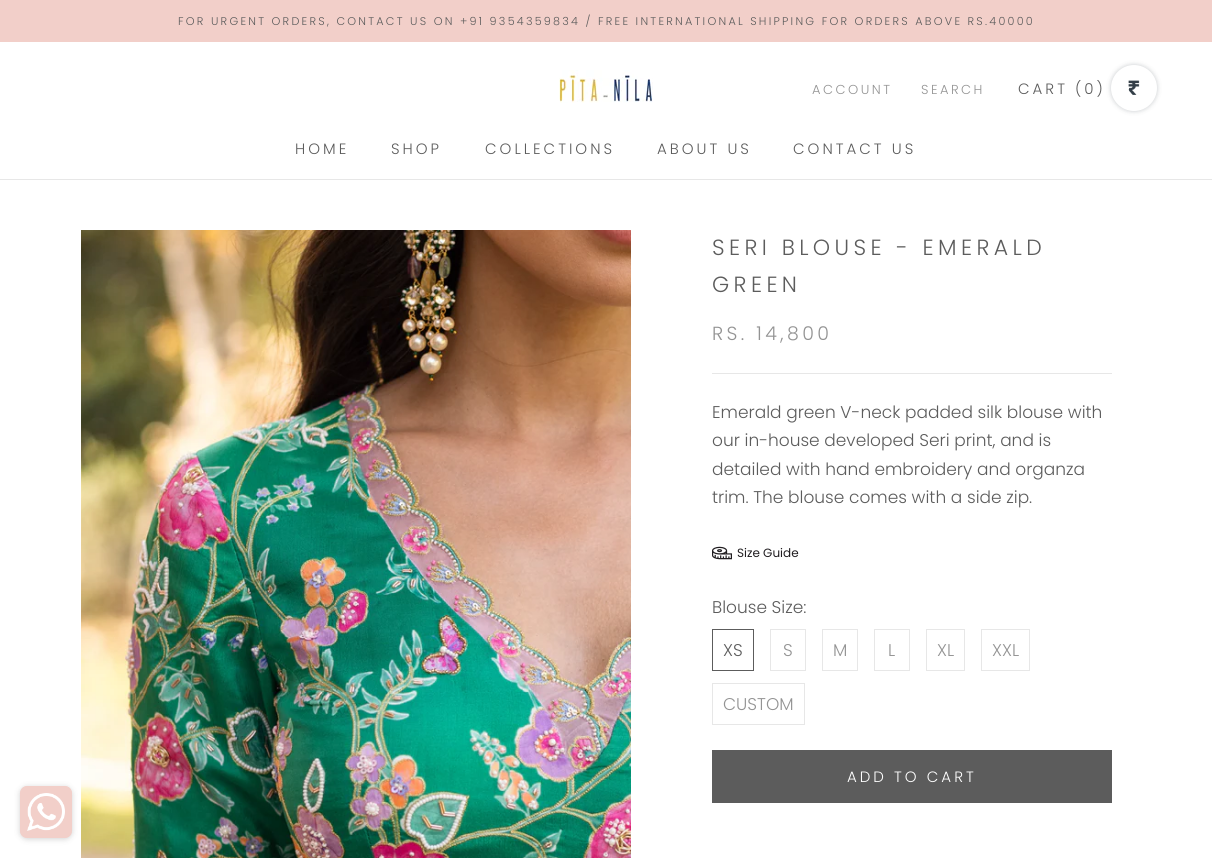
import math
import cairo

surface = cairo.ImageSurface(cairo.FORMAT_RGB24, 1212, 858)
cr = cairo.Context(surface)
options = cairo.FontOptions()
options.set_hint_metrics(cairo.HINT_METRICS_OFF)
options.set_hint_style(cairo.HINT_STYLE_NONE)
cr.set_font_options(options)
cr.set_miter_limit(4)


def rgb(code):
    cr.set_source_rgb(*(v / 255 for v in bytes.fromhex(code[-6:])))


def tracked(x, y, s, letter, word):
    cr.move_to(x, y)
    for ch in s:
        cr.show_text(ch)
        cr.rel_move_to(letter + word * (ch == ' '), 0)


def rrect(x, y, w, h, r):
    cr.new_sub_path()
    for i, (u, v) in enumerate([(x + w - r, y + h - r), (x + r, y + h - r), (x + r, y + r), (x + w - r, y + r)]):
        cr.arc(u, v, r, i * math.pi / 2, (i + 1) * math.pi / 2)
    cr.close_path()


def soft_shadow(x, y, w, h, r, blur, alpha):
    cr.push_group_with_content(cairo.CONTENT_ALPHA)
    cr.set_operator(cairo.OPERATOR_SOURCE)
    for i in range(15, -16, -2):
        e = blur * i / 6
        if min(w, h) + 2 * e > 0:
            cr.set_source_rgba(0, 0, 0, alpha * math.erfc((i - 1) / 8.5) / 2)
            rrect(x - e, y - e, w + 2 * e, h + 2 * e, max(0, min(r + e + blur * .6, min(w, h) / 2 + e)))
            cr.fill()
    cr.mask(cr.pop_group())


def image(path, x, y, w, h):
    cr.save()
    cr.set_source_surface(cairo.ImageSurface.create_from_png(path), x, y)
    cr.rectangle(x, y, w, h)
    cr.fill()
    cr.restore()


rgb("#ffffff")
cr.paint()
rgb("#f2cfc9")
cr.rectangle(0, 0, 1212, 42)
cr.fill()
rgb("#e7e7e7")
cr.rectangle(0, 179, 1212, 1)
cr.fill()
image("img/1.png", 559, 70, 94, 33)
rgb("#212b36")
soft_shadow(1111, 65, 46, 46, 23, 2.5, 0.25)
rgb("#ffffff")
cr.arc(1134, 88, 23, 0, 2 * math.pi)
cr.fill()
image("img/2.png", 1128, 80, 12, 15)
image("img/3.png", 81, 230, 550, 628)
rgb("#e7e7e7")
cr.rectangle(712, 373, 400, 1)
cr.fill()
image("img/4.png", 712, 546, 20, 14)
cr.rectangle(712.5, 629.5, 41, 41)
rgb("#5c5c5c")
cr.set_line_width(1)
cr.stroke()
cr.rectangle(770.5, 629.5, 35, 41)
rgb("#e7e7e7")
cr.stroke()
cr.rectangle(822.5, 629.5, 35, 41)
cr.stroke()
cr.rectangle(874.5, 629.5, 35, 41)
cr.stroke()
cr.rectangle(926.5, 629.5, 38, 41)
cr.stroke()
cr.rectangle(981.5, 629.5, 48, 41)
cr.stroke()
cr.rectangle(712.5, 683.5, 92, 41)
cr.stroke()
cr.rectangle(712.5, 750.5, 399, 52)
rgb("#5c5c5c")
cr.stroke()
cr.rectangle(713, 751, 398, 51)
cr.fill()
rgb("#1b1b1b")
soft_shadow(20, 787, 52, 52, 7, 3, 0.2)
rgb("#f2cfc9")
rrect(20.5, 786.5, 51, 51, 6.5)
cr.fill_preserve()
cr.stroke()
image("img/5.png", 27, 793, 38, 38)
cr.select_font_face("Poppins Light")
cr.set_font_size(11.2)
rgb("#5c5c5c")
tracked(178, 25, "FOR URGENT ORDERS, CONTACT US ON +91 9354359834 / FREE INTERNATIONAL SHIPPING FOR ORDERS ABOVE RS.40000", 2.24, 0)
cr.set_font_size(13)
rgb("#939393")
tracked(812, 94, "ACCOUNT", 2.5, 0)
tracked(921, 94, "SEARCH", 2.5, 0)
cr.set_font_size(15)
rgb("#5c5c5c")
for x, y, s in [
    (1018, 94, "CART (0)"),
    (295, 154, "HOME"),
    (391, 154, "SHOP"),
    (485, 154, "COLLECTIONS"),
    (657, 154, "ABOUT US"),
    (793, 154, "CONTACT US"),
]:
    tracked(x, y, s, 3, 0)
cr.set_font_size(22)
tracked(712, 255, "SERI BLOUSE - EMERALD", 4.4, 0)
tracked(712, 292, "GREEN", 4.4, 0)
cr.set_font_size(19)
rgb("#939393")
tracked(712, 340, "RS. 14,800", 3.4, 0)
cr.set_font_size(17)
rgb("#5c5c5c")
for x, y, s in [
    (712, 418, "Emerald green V-neck padded silk blouse with"),
    (712, 446, "our in-house developed Seri print, and is"),
    (712, 475, "detailed with hand embroidery and organza"),
    (712, 503, "trim. The blouse comes with a side zip."),
]:
    cr.move_to(x, y)
    cr.show_text(s)
cr.select_font_face("Poppins")
cr.set_font_size(12)
rgb("#201d20")
cr.move_to(737, 557)
cr.show_text("Size Guide")
cr.select_font_face("Poppins Light")
cr.set_font_size(17)
rgb("#5c5c5c")
cr.move_to(712, 613)
cr.show_text("Blouse Size:")
cr.move_to(723, 656)
cr.show_text("XS")
rgb("#939393")
for x, y, s in [
    (783, 656, "S"),
    (833, 656, "M"),
    (888, 656, "L"),
    (937, 656, "XL"),
    (992, 656, "XXL"),
    (723, 710, "CUSTOM"),
]:
    cr.move_to(x, y)
    cr.show_text(s)
cr.set_font_size(15)
rgb("#ffffff")
tracked(847, 782, "ADD TO CART", 3, 0)
surface.write_to_png("page.png")
